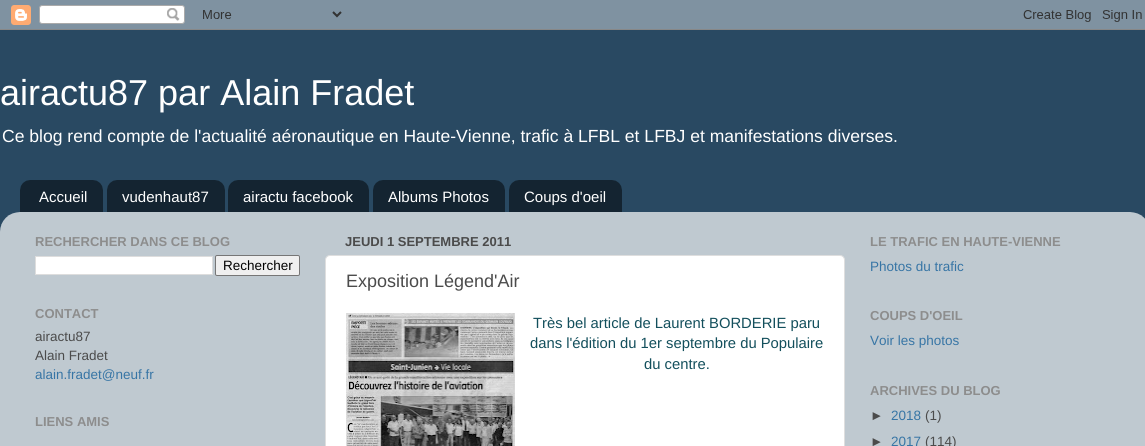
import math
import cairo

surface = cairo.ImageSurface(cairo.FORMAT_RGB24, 1145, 446)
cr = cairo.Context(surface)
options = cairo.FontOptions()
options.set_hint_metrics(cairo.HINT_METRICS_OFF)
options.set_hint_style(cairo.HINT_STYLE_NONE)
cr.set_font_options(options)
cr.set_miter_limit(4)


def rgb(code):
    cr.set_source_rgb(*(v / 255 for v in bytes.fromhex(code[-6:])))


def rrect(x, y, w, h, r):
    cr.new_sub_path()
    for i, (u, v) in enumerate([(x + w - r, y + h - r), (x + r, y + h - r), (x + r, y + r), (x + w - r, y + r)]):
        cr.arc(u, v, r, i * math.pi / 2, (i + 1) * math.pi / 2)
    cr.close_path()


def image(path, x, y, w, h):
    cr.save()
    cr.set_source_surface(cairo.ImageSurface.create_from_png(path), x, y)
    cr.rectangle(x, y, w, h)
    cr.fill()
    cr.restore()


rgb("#294962")
cr.paint()
image("img/1.png", 0, 0, 1145, 30)
image("img/2.png", 20, 180, 83, 32)
image("img/3.png", 107, 180, 118, 32)
image("img/4.png", 228, 180, 141, 32)
image("img/5.png", 373, 180, 132, 32)
image("img/6.png", 509, 180, 113, 32)
image("img/7.png", 0, 212, 1145, 234)
rgb("#ffffff")
cr.rectangle(35.5, 256.5, 177, 18)
cr.fill_preserve()
rgb("#dddddd")
cr.set_line_width(1)
cr.stroke()
rgb("#efefef")
rrect(215.5, 255.5, 84, 20, 1.5)
cr.fill_preserve()
rgb("#767676")
cr.stroke()
rgb("#ffffff")
rrect(325.5, 255.5, 519, 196, 4.5)
cr.fill_preserve()
rgb("#dedede")
cr.stroke()
image("img/8.png", 346, 313, 169, 133)
cr.select_font_face("Liberation Sans")
cr.set_font_size(36)
rgb("#ffffff")
cr.move_to(0, 105)
cr.show_text("airactu87 par Alain Fradet")
cr.set_font_size(17.55)
cr.move_to(2, 142)
cr.show_text("Ce blog rend compte de l'actualité aéronautique en Haute-Vienne, trafic à LFBL et LFBJ et manifestations diverses.")
cr.set_font_size(15)
for x, y, s in [
    (39, 202, "Accueil"),
    (122, 202, "vudenhaut87"),
    (243, 202, "airactu facebook"),
    (388, 202, "Albums Photos"),
    (524, 202, "Coups d'oeil"),
]:
    cr.move_to(x, y)
    cr.show_text(s)
cr.select_font_face("Liberation Sans", cairo.FONT_SLANT_NORMAL, cairo.FONT_WEIGHT_BOLD)
cr.set_font_size(13)
rgb("#8d8d8d")
cr.move_to(35, 246)
cr.show_text("RECHERCHER DANS CE BLOG")
cr.select_font_face("Liberation Sans")
cr.set_font_size(13.5)
rgb("#000000")
cr.move_to(223, 270)
cr.show_text("Rechercher")
cr.select_font_face("Liberation Sans", cairo.FONT_SLANT_NORMAL, cairo.FONT_WEIGHT_BOLD)
cr.set_font_size(13)
rgb("#8d8d8d")
cr.move_to(35, 318)
cr.show_text("CONTACT")
cr.select_font_face("Liberation Sans")
cr.set_font_size(13.5)
rgb("#4b4b4b")
cr.move_to(35, 341)
cr.show_text("airactu87")
cr.move_to(35, 360)
cr.show_text("Alain Fradet")
rgb("#3775a5")
cr.move_to(35, 379)
cr.show_text("alain.fradet@neuf.fr")
cr.select_font_face("Liberation Sans", cairo.FONT_SLANT_NORMAL, cairo.FONT_WEIGHT_BOLD)
cr.set_font_size(13)
rgb("#8d8d8d")
cr.move_to(35, 426)
cr.show_text("LIENS AMIS")
rgb("#4b4b4b")
cr.move_to(345, 246)
cr.show_text("JEUDI 1 SEPTEMBRE 2011")
cr.select_font_face("Liberation Sans")
cr.set_font_size(18)
cr.move_to(346, 287)
cr.show_text("Exposition Légend'Air")
cr.set_font_size(14.8)
rgb("#134f5c")
for x, y, s in [
    (533, 328, "Très bel article de Laurent BORDERIE paru"),
    (530, 348, "dans l'édition du 1er septembre du Populaire"),
    (644, 369, "du centre."),
]:
    cr.move_to(x, y)
    cr.show_text(s)
cr.select_font_face("Liberation Sans", cairo.FONT_SLANT_NORMAL, cairo.FONT_WEIGHT_BOLD)
cr.set_font_size(13)
rgb("#8d8d8d")
cr.move_to(870, 246)
cr.show_text("LE TRAFIC EN HAUTE-VIENNE")
cr.select_font_face("Liberation Sans")
cr.set_font_size(13.5)
rgb("#3775a5")
cr.move_to(870, 271)
cr.show_text("Photos du trafic")
cr.select_font_face("Liberation Sans", cairo.FONT_SLANT_NORMAL, cairo.FONT_WEIGHT_BOLD)
cr.set_font_size(13)
rgb("#8d8d8d")
cr.move_to(870, 320)
cr.show_text("COUPS D'OEIL")
cr.select_font_face("Liberation Sans")
cr.set_font_size(13.5)
rgb("#3775a5")
cr.move_to(870, 345)
cr.show_text("Voir les photos")
cr.select_font_face("Liberation Sans", cairo.FONT_SLANT_NORMAL, cairo.FONT_WEIGHT_BOLD)
cr.set_font_size(13)
rgb("#8d8d8d")
cr.move_to(870, 395)
cr.show_text("ARCHIVES DU BLOG")
cr.select_font_face("Liberation Sans")
cr.set_font_size(13.5)
rgb("#4b4b4b")
cr.move_to(870, 420)
cr.show_text("►")
rgb("#3775a5")
cr.move_to(891, 420)
cr.show_text("2018")
rgb("#4b4b4b")
cr.move_to(925, 420)
cr.show_text("(1)")
cr.move_to(870, 446)
cr.show_text("►")
rgb("#3775a5")
cr.move_to(891, 446)
cr.show_text("2017")
rgb("#4b4b4b")
cr.move_to(925, 446)
cr.show_text("(114)")
surface.write_to_png("page.png")
